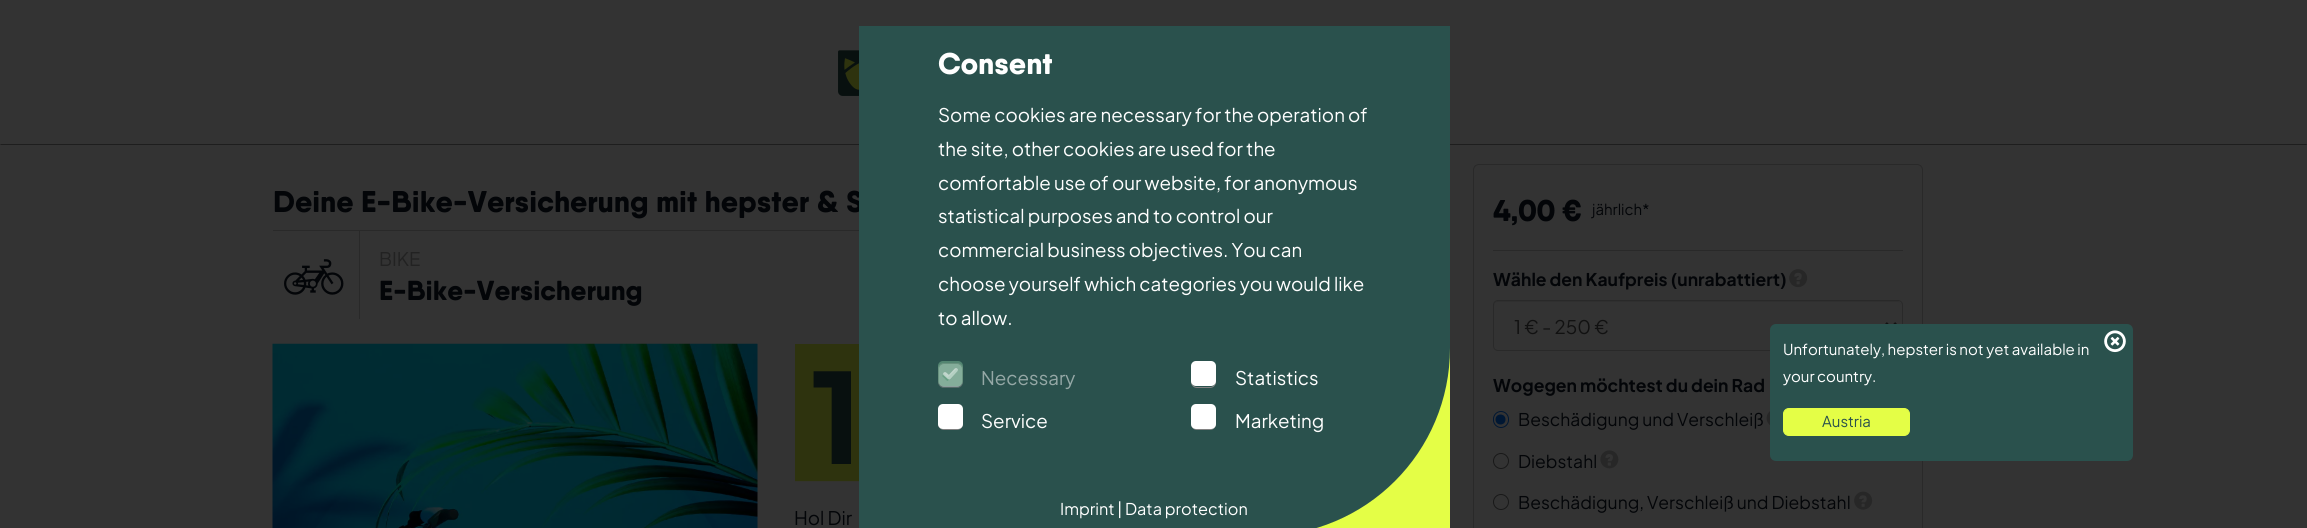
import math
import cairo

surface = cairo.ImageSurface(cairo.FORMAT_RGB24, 2307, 528)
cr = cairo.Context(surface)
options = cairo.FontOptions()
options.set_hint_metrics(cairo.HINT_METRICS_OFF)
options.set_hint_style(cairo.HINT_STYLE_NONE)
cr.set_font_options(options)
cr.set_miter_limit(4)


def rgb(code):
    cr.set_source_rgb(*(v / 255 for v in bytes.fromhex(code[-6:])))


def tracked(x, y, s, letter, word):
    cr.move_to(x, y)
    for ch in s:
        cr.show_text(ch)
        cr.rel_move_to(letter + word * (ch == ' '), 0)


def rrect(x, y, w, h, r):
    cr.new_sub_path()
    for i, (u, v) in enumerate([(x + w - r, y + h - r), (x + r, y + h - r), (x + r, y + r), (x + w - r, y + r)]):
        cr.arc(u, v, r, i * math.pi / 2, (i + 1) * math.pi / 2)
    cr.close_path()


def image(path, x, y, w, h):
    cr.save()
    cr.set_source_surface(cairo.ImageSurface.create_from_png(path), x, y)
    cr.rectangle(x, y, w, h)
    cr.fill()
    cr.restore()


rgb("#333333")
cr.paint()
rgb("#1e1e1e")
cr.new_path()
cr.move_to(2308, 145)
cr.line_to(0, 145)
cr.line_to(1, 144)
cr.line_to(2306, 144)
cr.close_path()
cr.fill()
image("img/1.png", 838, 50, 21, 46)
for x, y, w, h, color in [
    (1316, 348, 134, 180, "#e4fe46"),
    (273, 230, 586, 1, "#292929"),
    (359, 231, 1, 88, "#292929"),
]:
    rgb(color)
    cr.rectangle(x, y, w, h)
    cr.fill()
image("img/2.png", 284, 259, 60, 36)
image("img/3.png", 272, 343, 486, 185)
image("img/4.png", 795, 344, 64, 138)
rrect(1473.5, 164.5, 449, 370, 5.5)
cr.set_line_width(1)
cr.stroke()
cr.rectangle(1493, 250, 410, 1)
cr.fill()
image("img/5.png", 1789, 269, 19, 19)
rgb("#2f2f2f")
cr.new_path()
cr.move_to(1498, 302)
cr.line_to(1898, 302)
cr.curve_to(1900, 302, 1901, 304, 1901, 306)
cr.line_to(1901, 305)
cr.curve_to(1901, 303, 1899, 301, 1897, 301)
cr.line_to(1498, 301)
cr.curve_to(1496, 301, 1494, 303, 1494, 305)
cr.line_to(1494, 306)
cr.curve_to(1494, 304, 1495, 302, 1498, 302)
cr.close_path()
cr.fill()
rrect(1493.5, 300.5, 409, 50, 4.5)
rgb("#292929")
cr.stroke()
cr.new_path()
cr.move_to(1886, 323)
cr.line_to(1891, 328)
cr.line_to(1896, 323)
rgb("#111111")
cr.set_line_width(2.5)
cr.stroke()
rrect(1493.5, 411.5, 15, 16, 7.5)
rgb("#001733")
cr.set_line_width(1)
cr.stroke()
cr.arc(1500.5, 419.5, 5, 0, 2 * math.pi)
cr.fill()
image("img/6.png", 1766, 411, 4, 14)
cr.arc(1501, 461, 7.5, 0, 2 * math.pi)
rgb("#181818")
cr.stroke()
image("img/7.png", 1600, 450, 19, 19)
cr.arc(1501, 502, 7.5, 0, 2 * math.pi)
cr.stroke()
image("img/8.png", 1854, 491, 19, 19)
rgb("#2a514d")
rrect(1770, 324, 363, 137, 6)
cr.fill()
image("img/9.png", 2104, 330, 22, 23)
rgb("#e4fe46")
rrect(1783.5, 408.5, 126, 27, 5.5)
cr.fill_preserve()
cr.stroke()
cr.select_font_face("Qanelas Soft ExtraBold")
cr.set_font_size(30)
rgb("#030508")
cr.move_to(273, 212)
cr.show_text("Deine E-Bike-Versicherung mit hepster & S")
rgb("#2a514d")
cr.new_path()
cr.move_to(859, 26)
cr.line_to(1450, 26)
cr.line_to(1450, 348)
cr.curve_to(1450, 452, 1366, 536, 1262, 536)
cr.line_to(859, 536)
cr.close_path()
cr.fill()
rrect(1191.5, 405.5, 24, 24, 5.5)
rgb("#828282")
cr.stroke()
rgb("#ffffff")
rrect(1191, 404, 25, 25, 5)
cr.fill()
rrect(938.5, 405.5, 24, 24, 5.5)
rgb("#828282")
cr.stroke()
rgb("#ffffff")
rrect(938, 404, 25, 25, 5)
cr.fill()
rrect(1191.5, 363.5, 24, 24, 5.5)
rgb("#828282")
cr.stroke()
rgb("#ffffff")
rrect(1191, 361, 25, 25, 5)
cr.fill()
rgb("#8ca09e")
rrect(938.5, 363.5, 24, 24, 5.5)
cr.fill_preserve()
rgb("#566a68")
cr.stroke()
rgb("#548672")
cr.new_path()
cr.move_to(956.5, 369)
cr.line_to(958, 370.5)
cr.line_to(947.5, 381)
cr.line_to(945.5, 379.5)
cr.close_path()
cr.fill()
cr.new_path()
cr.move_to(944, 374)
cr.line_to(949, 379.5)
cr.line_to(947.5, 381)
cr.line_to(942, 376)
cr.close_path()
cr.fill()
cr.set_source_rgba(0.49, 0.733, 0.592, 0.5)
rrect(938, 361, 25, 25, 5)
cr.fill()
cr.new_path()
cr.move_to(945, 374)
cr.line_to(949, 377.5)
cr.line_to(956, 370)
cr.set_source_rgba(1, 1, 1, 0.5)
cr.set_line_width(3.8)
cr.set_line_cap(cairo.LINE_CAP_ROUND)
cr.set_line_join(cairo.LINE_JOIN_ROUND)
cr.stroke()
cr.select_font_face("Plus Jakarta Sans")
cr.set_font_size(16.25)
rgb("#ffffff")
cr.move_to(1060, 515)
cr.show_text("Imprint | Data protection")
cr.set_font_size(18.75)
for x, y, s in [
    (1235, 428, "Marketing"),
    (981, 428, "Service"),
    (1235, 385, "Statistics"),
]:
    cr.move_to(x, y)
    cr.show_text(s)
rgb("#95a8a6")
cr.move_to(981, 385)
cr.show_text("Necessary")
rgb("#ffffff")
for x, y, s in [
    (938, 325, "to allow."),
    (938, 291, "choose yourself which categories you would like"),
    (938, 257, "commercial business objectives. You can"),
    (938, 223, "statistical purposes and to control our"),
    (938, 190, "comfortable use of our website, for anonymous"),
    (938, 156, "the site, other cookies are used for the"),
    (938, 122, "Some cookies are necessary for the operation of"),
]:
    cr.move_to(x, y)
    cr.show_text(s)
cr.select_font_face("Qanelas Soft ExtraBold")
cr.set_font_size(30)
cr.move_to(938, 74)
cr.show_text("Consent")
cr.select_font_face("Plus Jakarta Sans")
cr.set_font_size(18.75)
rgb("#222222")
cr.move_to(379, 266)
cr.show_text("BIKE")
cr.select_font_face("Qanelas Soft ExtraBold")
cr.set_font_size(27.5)
rgb("#030508")
cr.move_to(379, 300)
cr.show_text("E-Bike-Versicherung")
cr.select_font_face("Plus Jakarta Sans")
cr.set_font_size(18.75)
cr.move_to(794, 525)
cr.show_text("Hol Dir")
cr.select_font_face("Qanelas Soft ExtraBold")
cr.set_font_size(30)
tracked(1493, 221, "4,00 €", -0.5, 0)
cr.select_font_face("Plus Jakarta Sans")
cr.set_font_size(15)
cr.move_to(1592, 215)
cr.show_text("jährlich*")
cr.select_font_face("Plus Jakarta Sans", cairo.FONT_SLANT_NORMAL, cairo.FONT_WEIGHT_BOLD)
cr.set_font_size(17.5)
cr.move_to(1493, 286)
cr.show_text("Wähle den Kaufpreis (unrabattiert)")
cr.select_font_face("Plus Jakarta Sans")
cr.set_font_size(18.75)
rgb("#111111")
cr.move_to(1514, 334)
cr.show_text("1 € - 250 €")
cr.select_font_face("Plus Jakarta Sans", cairo.FONT_SLANT_NORMAL, cairo.FONT_WEIGHT_BOLD)
cr.set_font_size(17.5)
rgb("#030508")
cr.move_to(1493, 392)
cr.show_text("Wogegen möchtest du dein Rad")
cr.select_font_face("Plus Jakarta Sans")
for x, y, s in [
    (1518, 426, "Beschädigung und Verschleiß"),
    (1518, 468, "Diebstahl"),
    (1518, 509, "Beschädigung, Verschleiß und Diebstahl"),
]:
    cr.move_to(x, y)
    cr.show_text(s)
cr.set_font_size(15)
rgb("#ffffff")
cr.move_to(1783, 355)
cr.show_text("Unfortunately, hepster is not yet available in")
cr.move_to(1783, 382)
cr.show_text("your country.")
rgb("#2a514d")
cr.move_to(1822, 427)
cr.show_text("Austria")
surface.write_to_png("page.png")
